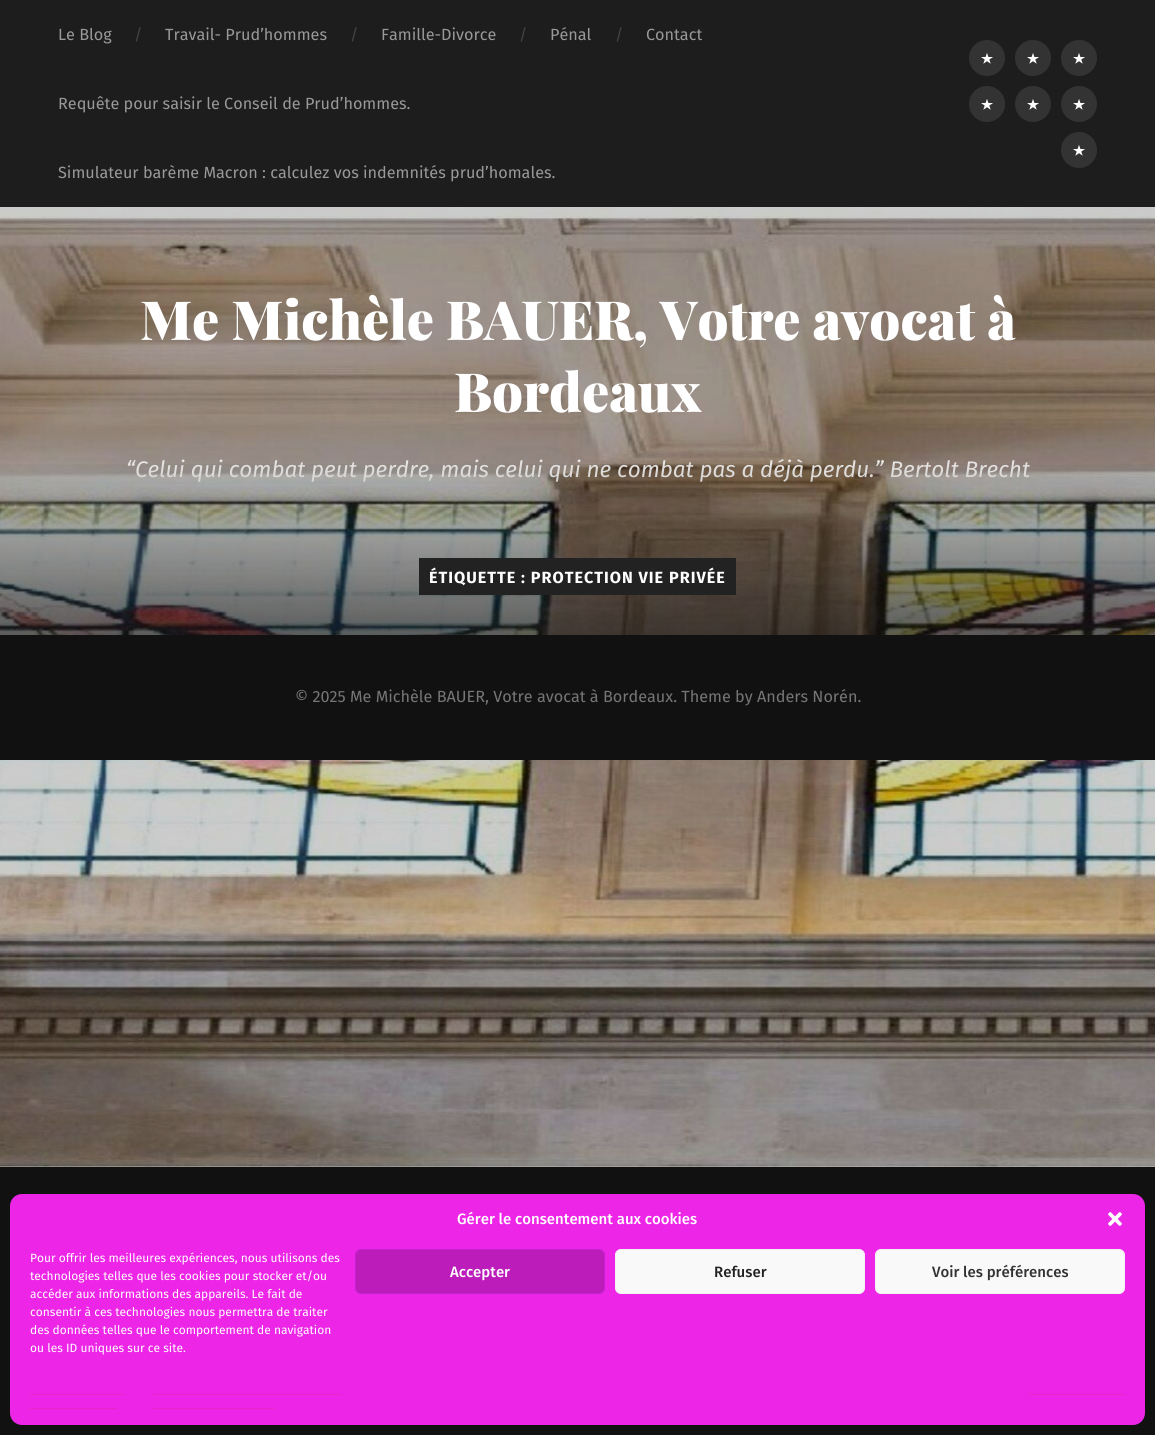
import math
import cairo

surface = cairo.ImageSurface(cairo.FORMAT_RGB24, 1155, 1435)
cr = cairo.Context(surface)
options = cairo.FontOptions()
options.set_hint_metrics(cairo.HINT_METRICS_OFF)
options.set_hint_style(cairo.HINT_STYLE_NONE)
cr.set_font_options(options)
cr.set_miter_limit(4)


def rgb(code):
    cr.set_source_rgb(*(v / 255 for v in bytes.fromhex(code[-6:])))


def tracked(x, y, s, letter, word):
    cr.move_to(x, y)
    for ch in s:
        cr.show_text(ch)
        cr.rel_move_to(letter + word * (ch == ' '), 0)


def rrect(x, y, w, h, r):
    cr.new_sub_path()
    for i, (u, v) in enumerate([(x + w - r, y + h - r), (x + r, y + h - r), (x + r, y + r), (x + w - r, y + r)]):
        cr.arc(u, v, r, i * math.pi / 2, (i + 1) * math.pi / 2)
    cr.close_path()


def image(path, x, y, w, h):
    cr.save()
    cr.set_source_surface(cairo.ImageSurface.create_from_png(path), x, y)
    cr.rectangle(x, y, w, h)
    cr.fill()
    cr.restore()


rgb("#111111")
cr.paint()
rgb("#1d1d1d")
cr.rectangle(0, 0, 1155, 207)
cr.fill()
rgb("#333333")
cr.arc(987, 58, 18, 0, 2 * math.pi)
cr.fill()
image("img/1.png", 981, 53, 12, 11)
cr.arc(1033, 58, 18, 0, 2 * math.pi)
cr.fill()
image("img/1.png", 1027, 53, 12, 11)
cr.arc(1079, 58, 18, 0, 2 * math.pi)
cr.fill()
image("img/1.png", 1073, 53, 12, 11)
cr.arc(987, 104, 18, 0, 2 * math.pi)
cr.fill()
image("img/1.png", 981, 99, 12, 11)
cr.arc(1033, 104, 18, 0, 2 * math.pi)
cr.fill()
image("img/1.png", 1027, 99, 12, 11)
cr.arc(1079, 104, 18, 0, 2 * math.pi)
cr.fill()
image("img/1.png", 1073, 99, 12, 11)
cr.arc(1079, 150, 18, 0, 2 * math.pi)
cr.fill()
image("img/1.png", 1073, 145, 12, 11)
image("img/2.png", 0, 207, 1155, 960)
rgb("#111111")
cr.rectangle(0, 635, 1155, 125)
cr.fill()
rgb("#ed25e6")
rrect(10, 1194, 1135, 231, 12)
cr.fill()
image("img/3.png", 1108, 1212, 14, 14)
rgb("#bc1cba")
rrect(355.5, 1249.5, 249, 44, 5.5)
cr.fill_preserve()
rgb("#c421d3")
cr.set_line_width(1)
cr.stroke()
rgb("#f9f9f9")
rrect(615.5, 1249.5, 249, 44, 5.5)
cr.fill_preserve()
rgb("#f2f2f2")
cr.stroke()
rgb("#f9f9f9")
rrect(875.5, 1249.5, 249, 44, 5.5)
cr.fill_preserve()
rgb("#f2f2f2")
cr.stroke()
for x, y, w, h, color in [
    (30, 1394, 94, 1, "#ea25c6"),
    (30, 1408, 87, 1, "#ea25c6"),
    (153, 1394, 188, 1, "#ea25c6"),
    (153, 1408, 121, 1, "#ea25c6"),
    (1029, 1394, 96, 1, "#ea25c6"),
]:
    rgb(color)
    cr.rectangle(x, y, w, h)
    cr.fill()
cr.select_font_face("Fira Sans")
cr.set_font_size(16.2)
rgb("#999999")
cr.move_to(58, 40)
cr.show_text("Le Blog")
cr.set_font_size(16)
rgb("#444444")
cr.move_to(134, 40)
cr.show_text("/")
cr.set_font_size(16.2)
rgb("#999999")
cr.move_to(165, 40)
cr.show_text("Travail- Prud’hommes")
cr.set_font_size(16)
rgb("#444444")
cr.move_to(350, 40)
cr.show_text("/")
cr.set_font_size(16.2)
rgb("#999999")
cr.move_to(381, 40)
cr.show_text("Famille-Divorce")
cr.set_font_size(16)
rgb("#444444")
cr.move_to(519, 40)
cr.show_text("/")
cr.set_font_size(16.2)
rgb("#999999")
cr.move_to(550, 40)
cr.show_text("Pénal")
cr.set_font_size(16)
rgb("#444444")
cr.move_to(615, 40)
cr.show_text("/")
cr.set_font_size(16.2)
rgb("#999999")
for x, y, s in [
    (646, 40, "Contact"),
    (58, 109, "Requête pour saisir le Conseil de Prud’hommes."),
    (58, 178, "Simulateur barème Macron : calculez vos indemnités prud’homales."),
]:
    cr.move_to(x, y)
    cr.show_text(s)
cr.select_font_face("Playfair Display Black")
cr.set_font_size(54)
rgb("#ffffff")
cr.move_to(140, 340)
cr.show_text("Me Michèle BAUER, Votre avocat à")
cr.move_to(454, 412)
cr.show_text("Bordeaux")
cr.select_font_face("Fira Sans", cairo.FONT_SLANT_ITALIC)
cr.set_font_size(22.5)
rgb("#e8e6e4")
cr.move_to(126, 477)
cr.show_text("“Celui qui combat peut perdre, mais celui qui ne combat pas a déjà perdu.” Bertolt Brecht")
gradient = cairo.LinearGradient(578, 458, 578, 758)
gradient.add_color_stop_rgba(0, 0.067, 0.067, 0.067, 0)
gradient.add_color_stop_rgba(1, 0.067, 0.067, 0.067, 1)
cr.set_source(gradient)
cr.rectangle(0, 464, 1155, 171)
cr.fill()
rgb("#222222")
cr.rectangle(419, 558, 317, 37)
cr.fill()
cr.select_font_face("Fira Sans", cairo.FONT_SLANT_NORMAL, cairo.FONT_WEIGHT_BOLD)
cr.set_font_size(16.2)
rgb("#ffffff")
tracked(429, 583, "ÉTIQUETTE : PROTECTION VIE PRIVÉE", 1, 0)
cr.select_font_face("Fira Sans")
rgb("#767676")
cr.move_to(295, 702)
cr.show_text("© 2025 Me Michèle BAUER, Votre avocat à Bordeaux. Theme by Anders Norén.")
cr.select_font_face("Fira Sans Medium")
cr.set_font_size(15)
rgb("#ffffff")
cr.move_to(457, 1224)
cr.show_text("Gérer le consentement aux cookies")
cr.select_font_face("Fira Sans")
cr.set_font_size(12)
for x, y, s in [
    (30, 1262, "Pour offrir les meilleures expériences, nous utilisons des"),
    (30, 1280, "technologies telles que les cookies pour stocker et/ou"),
    (30, 1298, "accéder aux informations des appareils. Le fait de"),
    (30, 1316, "consentir à ces technologies nous permettra de traiter"),
    (30, 1334, "des données telles que le comportement de navigation"),
    (30, 1352, "ou les ID uniques sur ce site."),
]:
    cr.move_to(x, y)
    cr.show_text(s)
cr.select_font_face("Fira Sans Medium")
cr.set_font_size(15)
cr.move_to(450, 1277)
cr.show_text("Accepter")
rgb("#222222")
cr.move_to(714, 1277)
cr.show_text("Refuser")
rgb("#333333")
cr.move_to(932, 1277)
cr.show_text("Voir les préférences")
surface.write_to_png("page.png")
